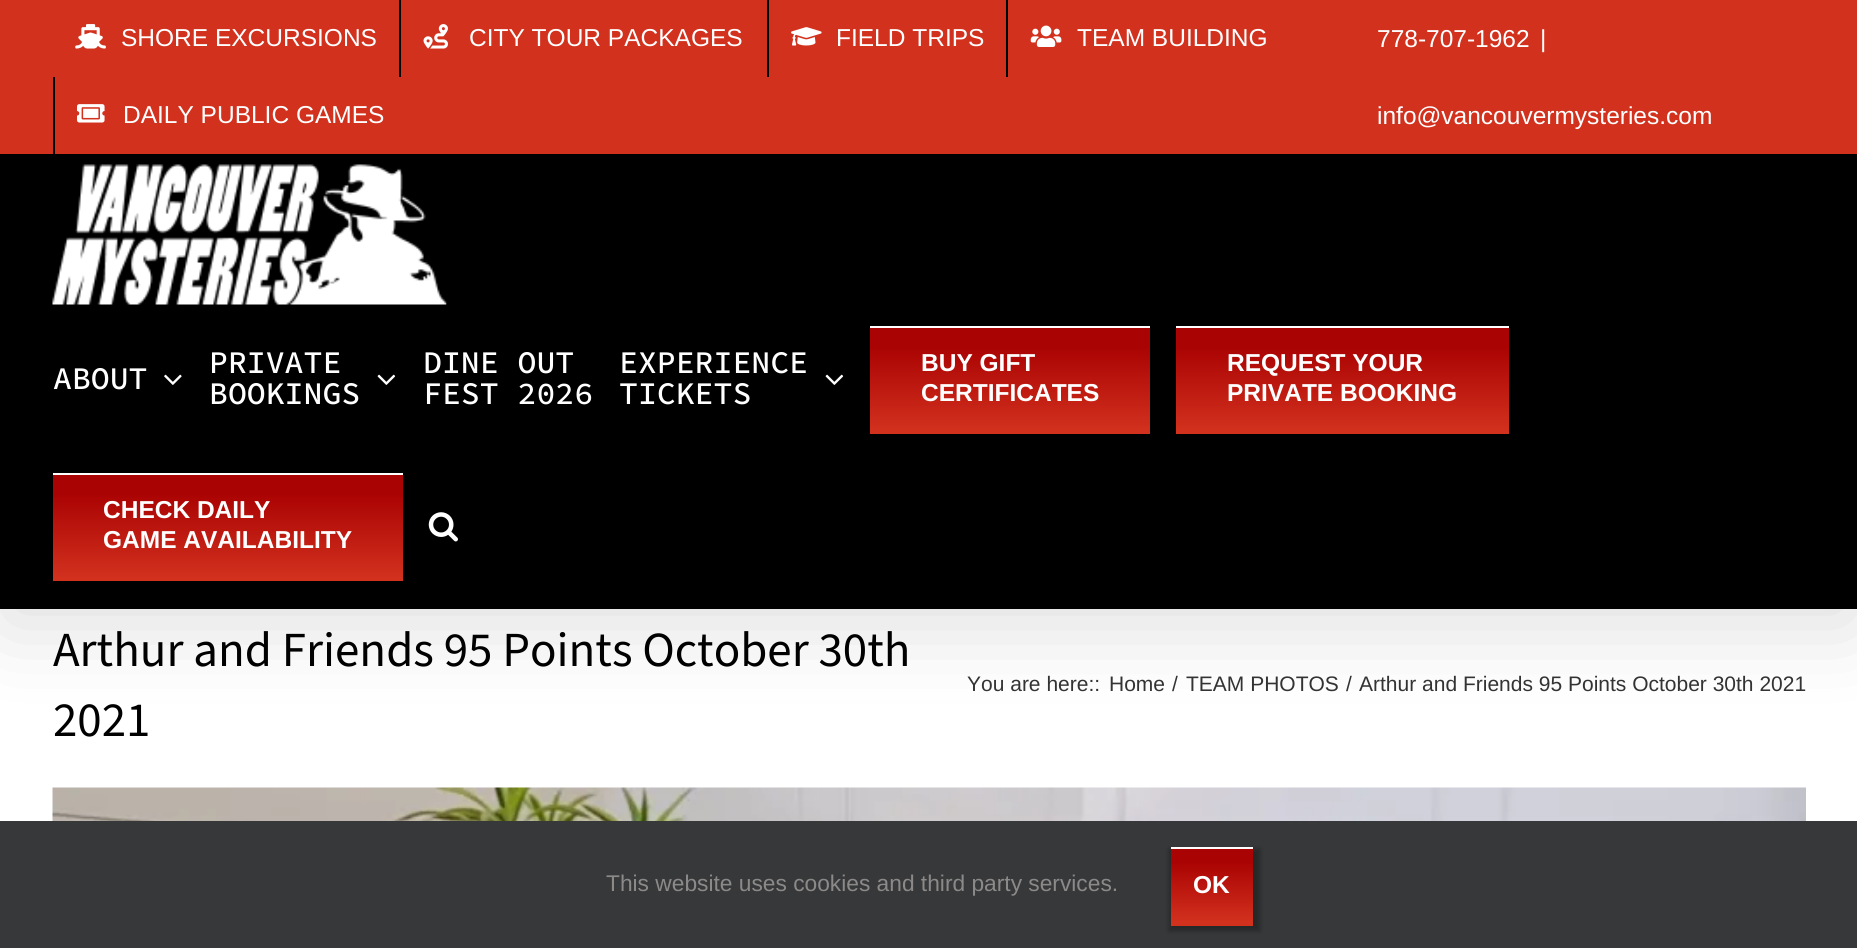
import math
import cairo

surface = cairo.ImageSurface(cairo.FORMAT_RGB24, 1857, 948)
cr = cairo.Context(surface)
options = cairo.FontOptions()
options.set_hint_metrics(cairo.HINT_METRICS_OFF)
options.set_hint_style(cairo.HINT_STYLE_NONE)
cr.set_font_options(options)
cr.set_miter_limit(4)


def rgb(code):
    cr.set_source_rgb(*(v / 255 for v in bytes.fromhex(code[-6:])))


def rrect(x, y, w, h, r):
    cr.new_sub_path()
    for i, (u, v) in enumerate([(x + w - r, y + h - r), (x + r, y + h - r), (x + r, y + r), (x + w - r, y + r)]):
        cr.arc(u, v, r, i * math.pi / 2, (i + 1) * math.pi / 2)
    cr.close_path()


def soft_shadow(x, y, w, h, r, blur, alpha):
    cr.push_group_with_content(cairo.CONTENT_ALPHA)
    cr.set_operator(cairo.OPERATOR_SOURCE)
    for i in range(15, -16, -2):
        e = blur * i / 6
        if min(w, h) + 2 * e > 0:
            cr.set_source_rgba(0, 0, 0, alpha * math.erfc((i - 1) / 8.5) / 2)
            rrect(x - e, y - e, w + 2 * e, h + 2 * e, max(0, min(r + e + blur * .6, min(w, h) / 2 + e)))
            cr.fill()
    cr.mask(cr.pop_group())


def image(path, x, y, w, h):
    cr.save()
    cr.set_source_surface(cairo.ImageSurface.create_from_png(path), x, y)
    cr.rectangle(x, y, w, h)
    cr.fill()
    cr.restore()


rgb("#ffffff")
cr.paint()
rgb("#000000")
soft_shadow(4, 21, 1851, 602, 0, 44, 0.14)
rgb("#d2311e")
cr.rectangle(0, 0, 1857, 154)
cr.fill()
rgb("#000000")
cr.rectangle(0, 154, 1857, 455)
cr.fill()
image("img/1.png", 75, 24, 31, 25)
cr.rectangle(399, 0, 2, 77)
cr.fill()
image("img/2.png", 423, 24, 25, 25)
cr.rectangle(767, 0, 2, 77)
cr.fill()
image("img/3.png", 791, 27, 31, 19)
cr.rectangle(1006, 0, 2, 77)
cr.fill()
image("img/4.png", 1030, 25, 32, 22)
cr.rectangle(53, 77, 2, 77)
cr.fill()
image("img/5.png", 77, 104, 28, 19)
image("img/6.png", 52, 164, 395, 141)
image("img/7.png", 164, 374, 18, 11)
image("img/8.png", 377, 374, 19, 11)
image("img/8.png", 825, 374, 19, 11)
rgb("#d2311e")
cr.new_path()
cr.move_to(870, 430)
cr.line_to(870, 434)
cr.line_to(1150, 434)
cr.line_to(1150, 329)
cr.line_to(1150, 430)
cr.close_path()
cr.fill()
gradient = cairo.LinearGradient(1010, 326, 1010, 431)
gradient.add_color_stop_rgba(0.2, 0.667, 0.012, 0.012, 1)
gradient.add_color_stop_rgba(1, 0.824, 0.192, 0.118, 1)
cr.set_source(gradient)
cr.rectangle(870, 328, 280, 102)
cr.fill()
rgb("#ffffff")
cr.rectangle(870, 326, 280, 2)
cr.fill()
rgb("#d2311e")
cr.new_path()
cr.move_to(1176, 430)
cr.line_to(1176, 434)
cr.line_to(1509, 434)
cr.line_to(1509, 329)
cr.line_to(1508, 329)
cr.line_to(1508, 430)
cr.close_path()
cr.fill()
gradient = cairo.LinearGradient(1342, 326, 1342, 431)
gradient.add_color_stop_rgba(0.2, 0.667, 0.012, 0.012, 1)
gradient.add_color_stop_rgba(1, 0.824, 0.192, 0.118, 1)
cr.set_source(gradient)
cr.rectangle(1176, 328, 333, 102)
cr.fill()
rgb("#ffffff")
cr.rectangle(1176, 326, 333, 2)
cr.fill()
rgb("#d2311e")
cr.new_path()
cr.move_to(53, 578)
cr.line_to(53, 581)
cr.line_to(403, 581)
cr.line_to(403, 476)
cr.line_to(402, 476)
cr.line_to(402, 578)
cr.close_path()
cr.fill()
gradient = cairo.LinearGradient(228, 473, 228, 578)
gradient.add_color_stop_rgba(0.2, 0.667, 0.012, 0.012, 1)
gradient.add_color_stop_rgba(1, 0.824, 0.192, 0.118, 1)
cr.set_source(gradient)
cr.rectangle(53, 475, 350, 103)
cr.fill()
rgb("#ffffff")
cr.rectangle(53, 473, 350, 2)
cr.fill()
image("img/9.png", 428, 512, 30, 30)
image("img/10.png", 52, 787, 1754, 34)
rgb("#363839")
cr.rectangle(0, 821, 1857, 127)
cr.fill()
rgb("#000000")
soft_shadow(1169, 849, 91, 82, 0, 2.5, 0.3)
rgb("#d2311e")
cr.rectangle(1171, 922, 82, 4)
cr.fill()
gradient = cairo.LinearGradient(1212, 847, 1212, 922)
gradient.add_color_stop_rgba(0.2, 0.667, 0.012, 0.012, 1)
gradient.add_color_stop_rgba(1, 0.824, 0.192, 0.118, 1)
cr.set_source(gradient)
cr.rectangle(1171, 849, 82, 73)
cr.fill()
rgb("#ffffff")
cr.rectangle(1171, 847, 82, 2)
cr.fill()
cr.select_font_face("Liberation Sans")
cr.set_font_size(24.5)
for x, y, s in [
    (121, 46, "SHORE EXCURSIONS"),
    (469, 46, "CITY TOUR PACKAGES"),
    (836, 46, "FIELD TRIPS"),
    (1077, 46, "TEAM BUILDING"),
    (123, 123, "DAILY PUBLIC GAMES"),
    (1377, 47, "778-707-1962"),
    (1540, 47, "|"),
    (1377, 124, "info@vancouvermysteries.com"),
]:
    cr.move_to(x, y)
    cr.show_text(s)
cr.select_font_face("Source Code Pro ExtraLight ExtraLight")
cr.set_font_size(31.5)
for x, y, s in [
    (53, 389, "ABOUT"),
    (209, 373, "PRIVATE"),
    (209, 404, "BOOKINGS"),
    (423, 373, "DINE OUT"),
    (423, 404, "FEST 2026"),
    (619, 373, "EXPERIENCE"),
    (619, 404, "TICKETS"),
]:
    cr.move_to(x, y)
    cr.show_text(s)
cr.select_font_face("Liberation Sans", cairo.FONT_SLANT_NORMAL, cairo.FONT_WEIGHT_BOLD)
cr.set_font_size(24.5)
for x, y, s in [
    (921, 371, "BUY GIFT"),
    (921, 401, "CERTIFICATES"),
    (1227, 371, "REQUEST YOUR"),
    (1227, 401, "PRIVATE BOOKING"),
    (103, 518, "CHECK DAILY"),
    (103, 548, "GAME AVAILABILITY"),
]:
    cr.move_to(x, y)
    cr.show_text(s)
cr.select_font_face("Source Sans 3")
cr.set_font_size(49)
rgb("#000000")
cr.move_to(53, 666)
cr.show_text("Arthur and Friends 95 Points October 30th")
cr.move_to(53, 736)
cr.show_text("2021")
cr.select_font_face("Liberation Sans")
cr.set_font_size(21)
rgb("#333333")
for x, y, s in [
    (967, 691, "You are here::"),
    (1109, 691, "Home"),
    (1172, 691, "/"),
    (1186, 691, "TEAM PHOTOS"),
    (1346, 691, "/"),
    (1359, 691, "Arthur and Friends 95 Points October 30th 2021"),
]:
    cr.move_to(x, y)
    cr.show_text(s)
cr.set_font_size(22.75)
rgb("#8c8989")
cr.move_to(606, 891)
cr.show_text("This website uses cookies and third party services.")
cr.select_font_face("Liberation Sans", cairo.FONT_SLANT_NORMAL, cairo.FONT_WEIGHT_BOLD)
cr.set_font_size(24.5)
rgb("#ffffff")
cr.move_to(1193, 893)
cr.show_text("OK")
surface.write_to_png("page.png")
